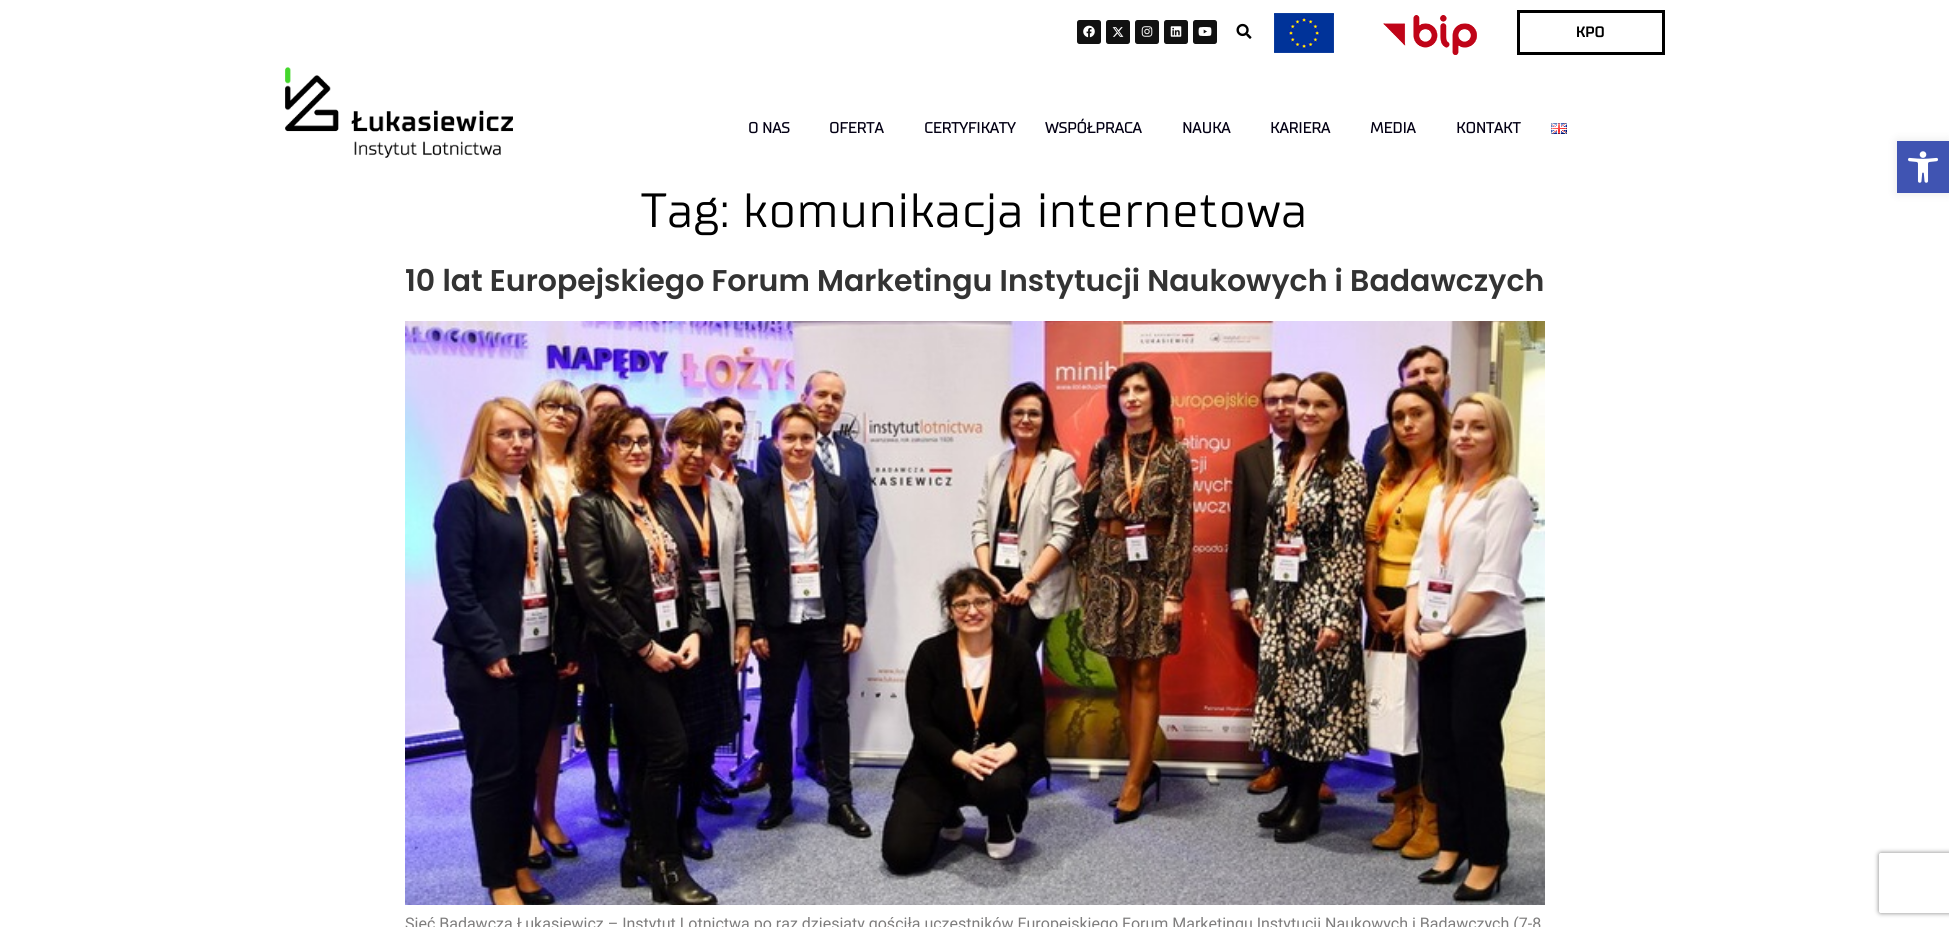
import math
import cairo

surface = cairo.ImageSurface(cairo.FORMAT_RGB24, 1949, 927)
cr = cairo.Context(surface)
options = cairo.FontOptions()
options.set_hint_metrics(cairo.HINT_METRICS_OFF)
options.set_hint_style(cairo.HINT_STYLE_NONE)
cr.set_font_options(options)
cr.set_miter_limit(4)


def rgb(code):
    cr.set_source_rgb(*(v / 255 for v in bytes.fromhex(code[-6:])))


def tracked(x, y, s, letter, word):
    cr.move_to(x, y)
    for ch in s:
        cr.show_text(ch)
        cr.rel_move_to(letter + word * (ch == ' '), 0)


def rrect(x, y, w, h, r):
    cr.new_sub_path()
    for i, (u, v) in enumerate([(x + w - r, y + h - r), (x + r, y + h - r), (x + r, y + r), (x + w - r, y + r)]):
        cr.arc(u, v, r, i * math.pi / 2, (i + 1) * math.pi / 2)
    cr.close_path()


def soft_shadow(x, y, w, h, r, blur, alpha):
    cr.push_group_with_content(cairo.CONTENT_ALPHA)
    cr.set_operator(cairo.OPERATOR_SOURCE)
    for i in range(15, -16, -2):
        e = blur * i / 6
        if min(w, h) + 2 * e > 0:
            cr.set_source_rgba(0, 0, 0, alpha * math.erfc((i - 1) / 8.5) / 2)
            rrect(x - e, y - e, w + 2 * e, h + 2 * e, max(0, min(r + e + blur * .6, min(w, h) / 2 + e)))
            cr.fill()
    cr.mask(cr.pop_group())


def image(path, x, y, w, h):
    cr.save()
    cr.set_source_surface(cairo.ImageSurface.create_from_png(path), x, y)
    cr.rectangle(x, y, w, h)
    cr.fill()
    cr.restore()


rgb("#ffffff")
cr.paint()
rgb("#111111")
rrect(1077, 20, 24, 24, 2.5)
cr.fill()
image("img/1.png", 1083, 25, 12, 13)
rrect(1106, 20, 24, 24, 2.5)
cr.fill()
image("img/2.png", 1112, 27, 12, 10)
rrect(1135, 20, 24, 24, 2.5)
cr.fill()
image("img/3.png", 1141, 26, 12, 11)
rrect(1164, 20, 24, 24, 2.5)
cr.fill()
image("img/4.png", 1170, 26, 12, 11)
rrect(1193, 20, 24, 24, 2.5)
cr.fill()
image("img/5.png", 1198, 27, 14, 9)
image("img/6.png", 1236, 23, 16, 16)
image("img/7.png", 1274, 13, 60, 40)
image("img/8.png", 1383, 15, 94, 40)
cr.rectangle(1518.5, 11.5, 145, 42)
rgb("#000000")
cr.set_line_width(3)
cr.stroke()
image("img/9.png", 285, 67, 228, 91)
image("img/10.png", 1551, 123, 16, 11)
image("img/11.png", 405, 321, 1140, 584)
rgb("#000000")
soft_shadow(1897, 141, 52, 52, 0, 5, 0.1)
rgb("#4054b2")
cr.rectangle(1897, 141, 52, 52)
cr.fill()
image("img/12.png", 1908, 151, 30, 32)
cr.save()
cr.set_fill_rule(cairo.FILL_RULE_EVEN_ODD)
cr.new_path()
cr.move_to(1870, 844)
cr.line_to(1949, 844)
cr.line_to(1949, 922)
cr.line_to(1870, 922)
cr.close_path()
cr.move_to(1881, 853)
cr.line_to(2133, 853)
cr.curve_to(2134, 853, 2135, 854, 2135, 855)
cr.line_to(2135, 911)
cr.curve_to(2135, 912, 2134, 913, 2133, 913)
cr.line_to(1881, 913)
cr.curve_to(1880, 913, 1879, 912, 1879, 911)
cr.line_to(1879, 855)
cr.curve_to(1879, 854, 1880, 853, 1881, 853)
cr.close_path()
cr.clip()
rgb("#808080")
soft_shadow(1879, 853, 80, 60, 2, 2.5, 1)
cr.restore()
cr.select_font_face("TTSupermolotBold", cairo.FONT_SLANT_NORMAL, cairo.FONT_WEIGHT_BOLD)
cr.set_font_size(15)
rgb("#000000")
cr.move_to(1576, 37)
cr.show_text("KPO")
cr.select_font_face("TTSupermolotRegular", cairo.FONT_SLANT_NORMAL, cairo.FONT_WEIGHT_BOLD)
rgb("#030014")
for x, y, s in [
    (748, 133, "O NAS"),
    (829, 133, "OFERTA"),
    (924, 133, "CERTYFIKATY"),
    (1045, 133, "WSPÓŁPRACA"),
    (1182, 133, "NAUKA"),
    (1270, 133, "KARIERA"),
    (1370, 133, "MEDIA"),
    (1456, 133, "KONTAKT"),
]:
    cr.move_to(x, y)
    cr.show_text(s)
cr.select_font_face("TTSupermolotRegular")
cr.set_font_size(48)
rgb("#000000")
tracked(641, 227, "Tag: komunikacja internetowa", 1, 0)
cr.select_font_face("Poppins SemiBold")
cr.set_font_size(30)
rgb("#333333")
cr.move_to(405, 291)
cr.show_text("10 lat Europejskiego Forum Marketingu Instytucji Naukowych i Badawczych")
cr.select_font_face("Roboto")
cr.set_font_size(16)
rgb("#7e7d7d")
cr.move_to(405, 929)
cr.show_text("Sieć Badawcza Łukasiewicz – Instytut Lotnictwa po raz dziesiąty gościła uczestników Europejskiego Forum Marketingu Instytucji Naukowych i Badawczych (7-8")
surface.write_to_png("page.png")
